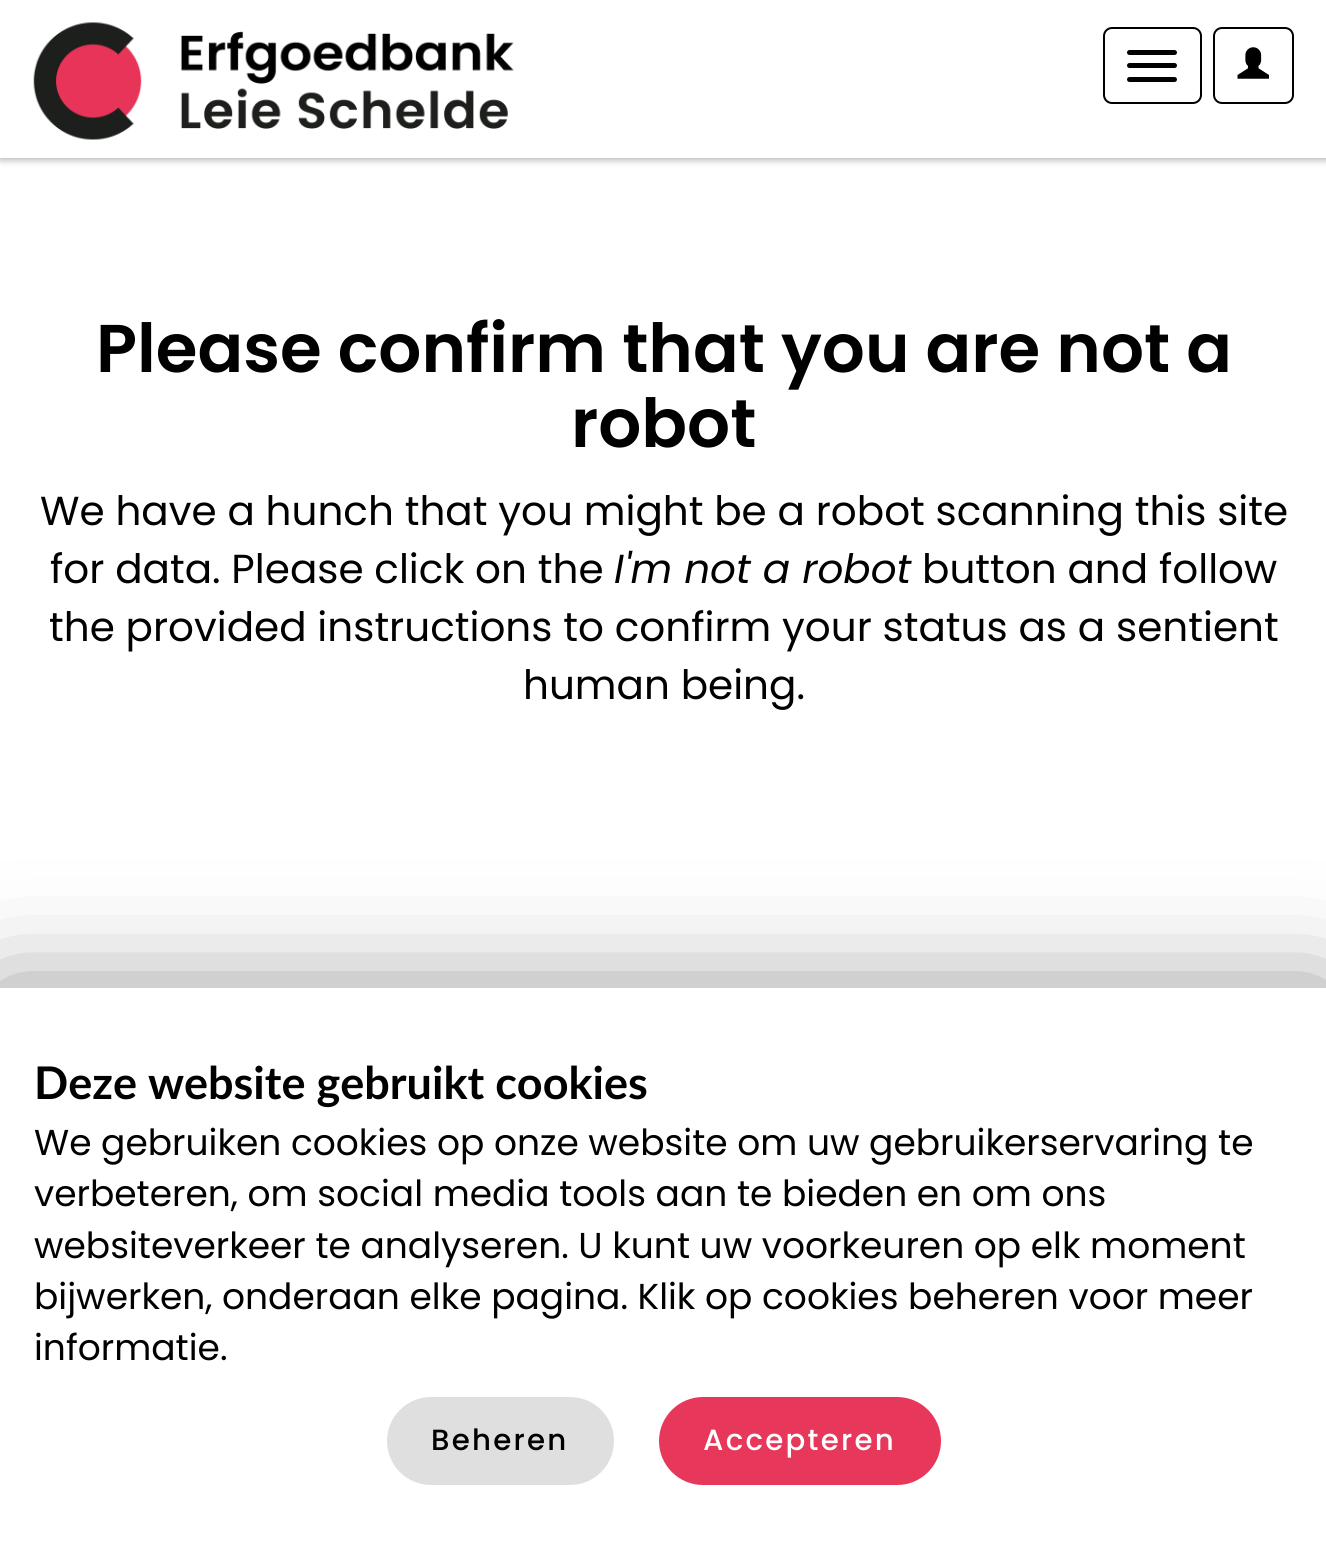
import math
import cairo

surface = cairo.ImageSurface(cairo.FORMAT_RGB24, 1326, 1551)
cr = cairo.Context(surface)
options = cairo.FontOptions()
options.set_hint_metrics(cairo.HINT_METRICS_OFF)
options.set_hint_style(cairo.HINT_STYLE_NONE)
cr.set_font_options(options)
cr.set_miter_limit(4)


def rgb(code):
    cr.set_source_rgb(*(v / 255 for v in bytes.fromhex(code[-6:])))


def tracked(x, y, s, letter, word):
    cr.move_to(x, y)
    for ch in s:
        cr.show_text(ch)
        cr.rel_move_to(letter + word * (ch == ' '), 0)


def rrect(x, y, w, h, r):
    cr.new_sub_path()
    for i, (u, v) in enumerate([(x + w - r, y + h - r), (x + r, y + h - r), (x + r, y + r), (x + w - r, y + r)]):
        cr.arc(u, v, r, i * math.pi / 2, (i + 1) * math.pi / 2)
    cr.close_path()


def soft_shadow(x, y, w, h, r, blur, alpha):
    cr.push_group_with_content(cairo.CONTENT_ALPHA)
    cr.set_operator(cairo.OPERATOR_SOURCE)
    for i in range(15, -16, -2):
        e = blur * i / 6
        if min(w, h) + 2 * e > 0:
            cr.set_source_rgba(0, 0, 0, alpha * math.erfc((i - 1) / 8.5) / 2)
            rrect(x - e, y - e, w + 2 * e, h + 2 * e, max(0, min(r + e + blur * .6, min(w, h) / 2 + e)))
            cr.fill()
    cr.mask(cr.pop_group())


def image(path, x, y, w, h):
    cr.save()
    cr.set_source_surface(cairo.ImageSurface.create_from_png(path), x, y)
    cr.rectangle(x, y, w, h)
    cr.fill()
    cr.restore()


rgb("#ffffff")
cr.paint()
rgb("#000000")
soft_shadow(0, 2, 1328, 158, 0, 3.5, 0.3)
rgb("#ffffff")
cr.rectangle(0, 0, 1326, 158)
cr.fill()
image("img/1.png", 33, 22, 481, 118)
rrect(1104, 28, 97, 75, 8)
rgb("#000000")
cr.stroke()
rrect(1127, 50, 50, 5, 2.5)
cr.fill()
rrect(1127, 63, 50, 5, 2.5)
cr.fill()
rrect(1127, 77, 50, 5, 2.5)
cr.fill()
rrect(1214, 28, 79, 75, 8)
cr.stroke()
image("img/2.png", 1237, 47, 32, 32)
rgb("#000000")
soft_shadow(0, 999, 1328, 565, 0, 56, 0.5)
rgb("#ffffff")
cr.rectangle(0, 988, 1326, 563)
cr.fill()
rgb("#dfdfdf")
rrect(387, 1397, 227, 88, 44)
cr.fill()
rgb("#e7375a")
rrect(659, 1397, 282, 88, 44)
cr.fill()
cr.select_font_face("Poppins SemiBold")
cr.set_font_size(67.5)
rgb("#000000")
cr.move_to(96, 372)
cr.show_text("Please confirm that you are not a")
cr.move_to(571, 447)
cr.show_text("robot")
cr.select_font_face("Poppins")
cr.set_font_size(40.5)
cr.move_to(40, 525)
cr.show_text("We have a hunch that you might be a robot scanning this site")
cr.move_to(50, 583)
cr.show_text("for data. Please click on the")
cr.select_font_face("Poppins", cairo.FONT_SLANT_ITALIC)
cr.move_to(614, 583)
cr.show_text("I'm not a robot")
cr.select_font_face("Poppins")
for x, y, s in [
    (922, 583, "button and follow"),
    (49, 641, "the provided instructions to confirm your status as a sentient"),
    (523, 699, "human being."),
]:
    cr.move_to(x, y)
    cr.show_text(s)
cr.select_font_face("Lato", cairo.FONT_SLANT_NORMAL, cairo.FONT_WEIGHT_BOLD)
cr.set_font_size(45)
cr.move_to(34, 1099)
cr.show_text("Deze website gebruikt cookies")
cr.select_font_face("Poppins")
cr.set_font_size(36)
for x, y, s in [
    (34, 1155, "We gebruiken cookies op onze website om uw gebruikerservaring te"),
    (34, 1206, "verbeteren, om social media tools aan te bieden en om ons"),
    (34, 1258, "websiteverkeer te analyseren. U kunt uw voorkeuren op elk moment"),
    (34, 1309, "bijwerken, onderaan elke pagina. Klik op cookies beheren voor meer"),
    (34, 1360, "informatie."),
]:
    cr.move_to(x, y)
    cr.show_text(s)
cr.select_font_face("Poppins Medium")
cr.set_font_size(29.25)
tracked(431, 1450, "Beheren", 2.25, 0)
rgb("#ffffff")
tracked(703, 1450, "Accepteren", 2.25, 0)
surface.write_to_png("page.png")
